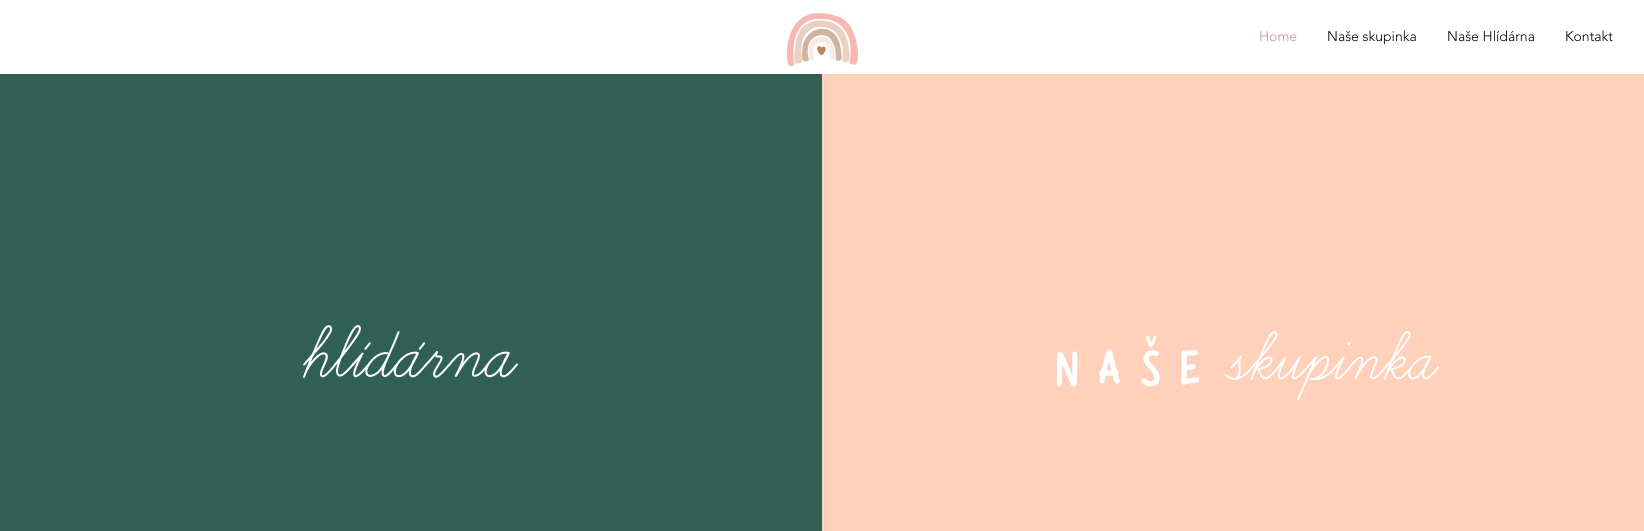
import math
import cairo

surface = cairo.ImageSurface(cairo.FORMAT_RGB24, 1644, 531)
cr = cairo.Context(surface)
options = cairo.FontOptions()
options.set_hint_metrics(cairo.HINT_METRICS_OFF)
options.set_hint_style(cairo.HINT_STYLE_NONE)
cr.set_font_options(options)
cr.set_miter_limit(4)


def rgb(code):
    cr.set_source_rgb(*(v / 255 for v in bytes.fromhex(code[-6:])))


def image(path, x, y, w, h):
    cr.save()
    cr.set_source_surface(cairo.ImageSurface.create_from_png(path), x, y)
    cr.rectangle(x, y, w, h)
    cr.fill()
    cr.restore()


rgb("#305f54")
cr.paint()
rgb("#ffffff")
cr.rectangle(0, 0, 1644, 74)
cr.fill()
image("img/1.png", 787, 13, 71, 53)
image("img/2.png", 303, 325, 215, 53)
rgb("#ffd0ba")
cr.rectangle(822, 74, 822, 457)
cr.fill()
image("img/3.png", 1057, 331, 382, 69)
cr.select_font_face("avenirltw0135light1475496 Light")
cr.set_font_size(14)
rgb("#ca908b")
cr.move_to(1259, 41)
cr.show_text("Home")
rgb("#000000")
for x, y, s in [
    (1327, 41, "Naše skupinka"),
    (1447, 41, "Naše Hlídárna"),
    (1565, 41, "Kontakt"),
]:
    cr.move_to(x, y)
    cr.show_text(s)
surface.write_to_png("page.png")
